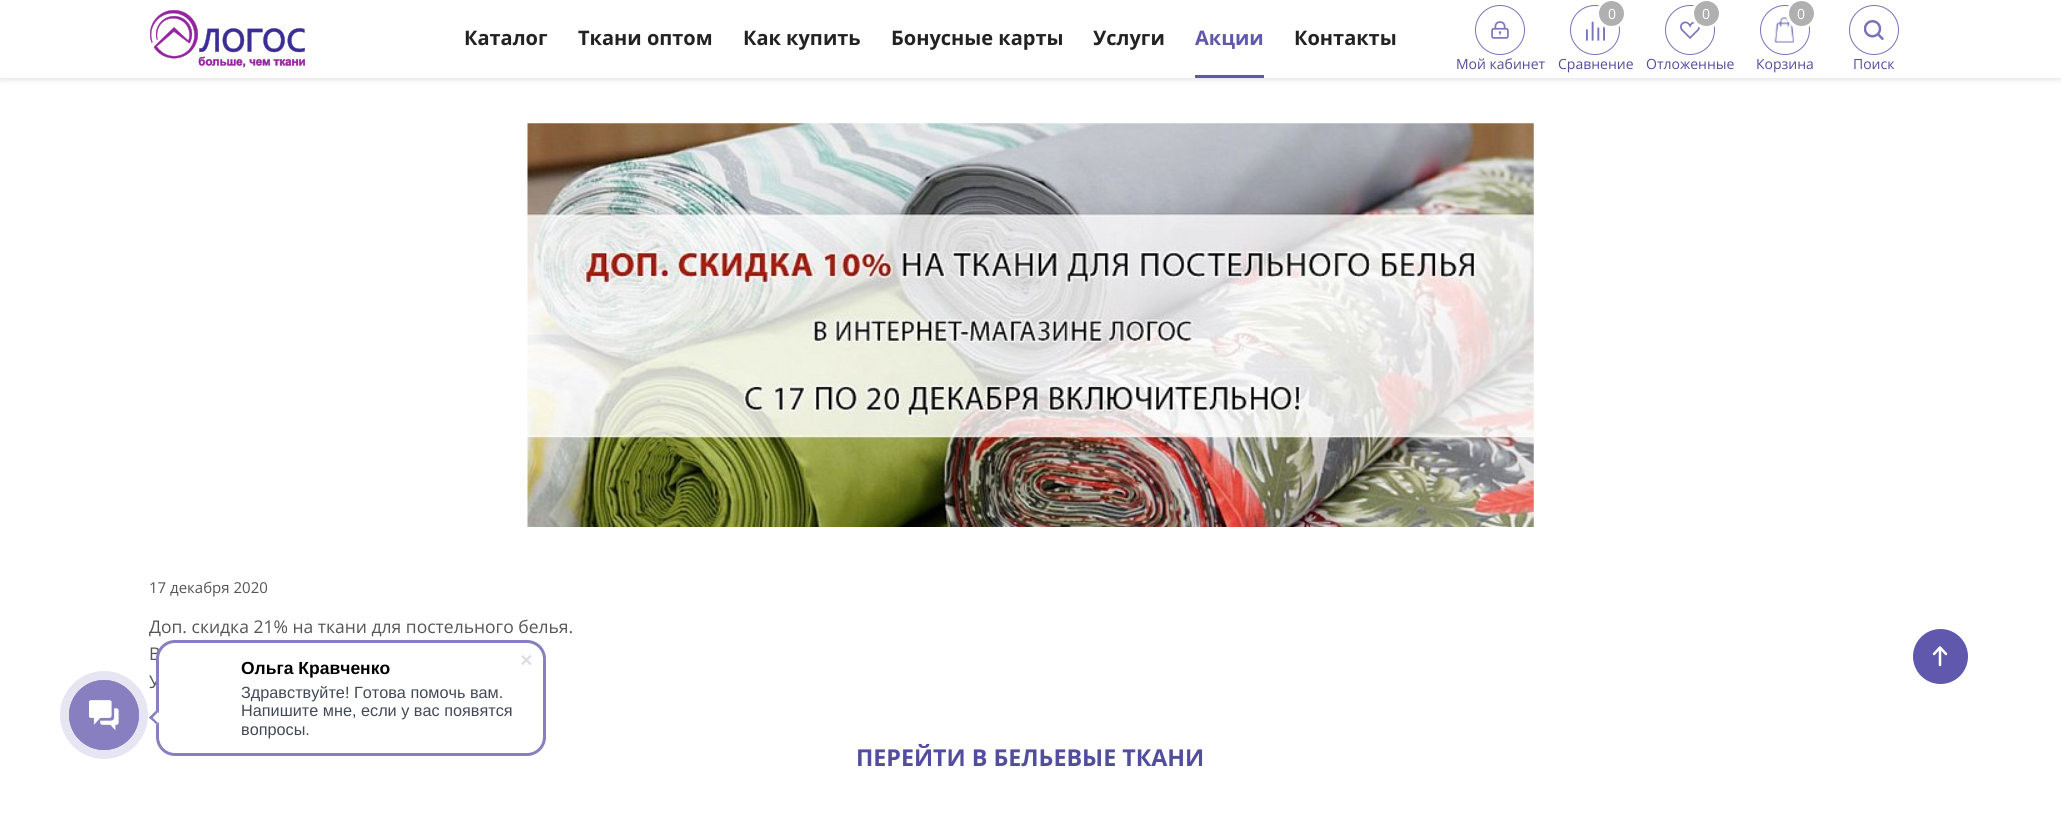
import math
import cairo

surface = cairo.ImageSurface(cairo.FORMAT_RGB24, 2061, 818)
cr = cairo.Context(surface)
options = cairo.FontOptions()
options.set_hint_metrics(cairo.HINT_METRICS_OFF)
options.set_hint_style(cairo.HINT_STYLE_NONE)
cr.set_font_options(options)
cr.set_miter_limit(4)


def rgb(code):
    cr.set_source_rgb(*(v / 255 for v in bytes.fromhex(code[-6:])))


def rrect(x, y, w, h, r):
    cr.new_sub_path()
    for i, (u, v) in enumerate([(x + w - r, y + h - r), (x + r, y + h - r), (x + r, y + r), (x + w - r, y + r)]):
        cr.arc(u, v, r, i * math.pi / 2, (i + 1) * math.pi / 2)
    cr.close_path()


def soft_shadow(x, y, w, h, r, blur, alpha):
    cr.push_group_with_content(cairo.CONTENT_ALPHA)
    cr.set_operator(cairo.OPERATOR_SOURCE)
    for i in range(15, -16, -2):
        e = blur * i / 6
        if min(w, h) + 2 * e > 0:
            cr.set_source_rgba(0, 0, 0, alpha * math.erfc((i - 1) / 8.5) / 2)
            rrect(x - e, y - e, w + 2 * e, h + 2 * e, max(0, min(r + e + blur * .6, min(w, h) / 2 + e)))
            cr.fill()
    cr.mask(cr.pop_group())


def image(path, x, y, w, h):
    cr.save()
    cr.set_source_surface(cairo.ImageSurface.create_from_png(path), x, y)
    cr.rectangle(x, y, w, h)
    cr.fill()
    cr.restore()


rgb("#ffffff")
cr.paint()
rgb("#000000")
soft_shadow(0, 1, 2061, 78, 0, 3, 0.14)
rgb("#ffffff")
cr.rectangle(0, 0, 2061, 78)
cr.fill()
image("img/1.png", 150, 10, 155, 58)
rgb("#5f58ac")
cr.rectangle(1195, 75, 69, 3)
cr.fill()
cr.arc(1595, 30, 24.5, 0, 2 * math.pi)
rgb("#7973ba")
cr.set_line_width(1)
cr.stroke()
image("img/2.png", 1585, 21, 20, 20)
cr.arc(1611, 14, 13.5, 0, 2 * math.pi)
rgb("#ffffff")
cr.set_line_width(3)
cr.stroke()
rgb("#b0b0b0")
cr.arc(1611.5, 13.5, 12.5, 0, 2 * math.pi)
cr.fill()
cr.arc(1690, 30, 24.5, 0, 2 * math.pi)
rgb("#7973ba")
cr.set_line_width(1)
cr.stroke()
image("img/3.png", 1680, 21, 20, 18)
cr.arc(1706, 14, 13.5, 0, 2 * math.pi)
rgb("#ffffff")
cr.set_line_width(3)
cr.stroke()
rgb("#b0b0b0")
cr.arc(1706.5, 13.5, 12.5, 0, 2 * math.pi)
cr.fill()
cr.arc(1785, 30, 24.5, 0, 2 * math.pi)
rgb("#7973ba")
cr.set_line_width(1)
cr.stroke()
image("img/4.png", 1774, 17, 20, 26)
cr.arc(1801, 14, 13.5, 0, 2 * math.pi)
rgb("#ffffff")
cr.set_line_width(3)
cr.stroke()
rgb("#b0b0b0")
cr.arc(1801.5, 13.5, 12.5, 0, 2 * math.pi)
cr.fill()
cr.arc(1500, 30, 24.5, 0, 2 * math.pi)
rgb("#7973ba")
cr.set_line_width(1)
cr.stroke()
image("img/5.png", 1491, 21, 18, 18)
cr.arc(1874, 30, 24.5, 0, 2 * math.pi)
cr.stroke()
image("img/6.png", 1864, 20, 20, 20)
image("img/7.png", 527, 123, 1007, 404)
rgb("#5f58ac")
cr.arc(1940.5, 656.5, 27.5, 0, 2 * math.pi)
cr.fill()
cr.new_path()
cr.move_to(1940, 647.5)
cr.line_to(1940, 665)
cr.move_to(1934, 654)
cr.line_to(1940, 647.5)
cr.line_to(1946, 654)
rgb("#ffffff")
cr.set_line_width(2.5)
cr.set_line_cap(cairo.LINE_CAP_ROUND)
cr.set_line_join(cairo.LINE_JOIN_ROUND)
cr.stroke()
rgb("#e7e5f2")
cr.arc(104, 715, 44, 0, 2 * math.pi)
cr.fill()
cr.arc(104, 715, 34.5, 0, 2 * math.pi)
rgb("#887fc0")
cr.set_line_width(1)
cr.set_line_cap(cairo.LINE_CAP_BUTT)
cr.set_line_join(cairo.LINE_JOIN_MITER)
cr.stroke()
cr.arc(104, 715, 35, 0, 2 * math.pi)
cr.fill()
image("img/8.png", 89, 700, 30, 30)
cr.select_font_face("Open Sans", cairo.FONT_SLANT_NORMAL, cairo.FONT_WEIGHT_BOLD)
cr.set_font_size(20)
rgb("#222222")
for x, y, s in [
    (464, 45, "Каталог"),
    (578, 45, "Ткани оптом"),
    (743, 45, "Как купить"),
    (891, 45, "Бонусные карты"),
    (1093, 45, "Услуги"),
]:
    cr.move_to(x, y)
    cr.show_text(s)
rgb("#5f58ac")
cr.move_to(1195, 45)
cr.show_text("Акции")
rgb("#222222")
cr.move_to(1294, 45)
cr.show_text("Контакты")
cr.select_font_face("Open Sans")
cr.set_font_size(14)
rgb("#ffffff")
cr.move_to(1608, 19)
cr.show_text("0")
rgb("#534d9e")
cr.move_to(1558, 69)
cr.show_text("Сравнение")
rgb("#ffffff")
cr.move_to(1702, 19)
cr.show_text("0")
rgb("#534d9e")
cr.move_to(1646, 69)
cr.show_text("Отложенные")
rgb("#ffffff")
cr.move_to(1797, 19)
cr.show_text("0")
rgb("#534d9e")
for x, y, s in [
    (1756, 69, "Корзина"),
    (1456, 69, "Мой кабинет"),
    (1853, 69, "Поиск"),
]:
    cr.move_to(x, y)
    cr.show_text(s)
cr.set_font_size(15)
rgb("#555555")
cr.move_to(149, 593)
cr.show_text("17 декабря 2020")
cr.set_font_size(17.5)
for x, y, s in [
    (149, 633, "Доп. скидка 21% на ткани для постельного белья."),
    (149, 660, "В"),
    (149, 688, "У"),
]:
    cr.move_to(x, y)
    cr.show_text(s)
cr.select_font_face("Open Sans", cairo.FONT_SLANT_NORMAL, cairo.FONT_WEIGHT_BOLD)
cr.set_font_size(23.25)
rgb("#534d9e")
cr.move_to(856, 766)
cr.show_text("ПЕРЕЙТИ В БЕЛЬЕВЫЕ ТКАНИ")
rgb("#ffffff")
rrect(157.5, 641.5, 387, 113, 17.5)
cr.fill_preserve()
rgb("#887fc0")
cr.set_line_width(3)
cr.stroke()
rgb("#ffffff")
cr.new_path()
cr.move_to(163.5, 717.5)
cr.line_to(156.5, 724.5)
cr.line_to(149, 717.5)
cr.line_to(156, 710.5)
cr.close_path()
cr.fill()
rgb("#887fc0")
cr.new_path()
cr.move_to(158, 723)
cr.line_to(156.5, 724.5)
cr.line_to(149, 717.5)
cr.line_to(151, 716)
cr.close_path()
cr.fill()
cr.new_path()
cr.move_to(158, 712)
cr.line_to(151, 719.5)
cr.line_to(149, 717.5)
cr.line_to(156, 710.5)
cr.close_path()
cr.fill()
cr.select_font_face("Liberation Sans", cairo.FONT_SLANT_NORMAL, cairo.FONT_WEIGHT_BOLD)
cr.set_font_size(17.5)
rgb("#000000")
cr.move_to(241, 674)
cr.show_text("Ольга Кравченко")
cr.select_font_face("Liberation Sans")
cr.set_font_size(16.25)
rgb("#424956")
for x, y, s in [
    (241, 698, "Здравствуйте! Готова помочь вам."),
    (241, 716, "Напишите мне, если у вас появятся"),
    (241, 735, "вопросы."),
]:
    cr.move_to(x, y)
    cr.show_text(s)
image("img/9.png", 521, 655, 11, 11)
surface.write_to_png("page.png")
